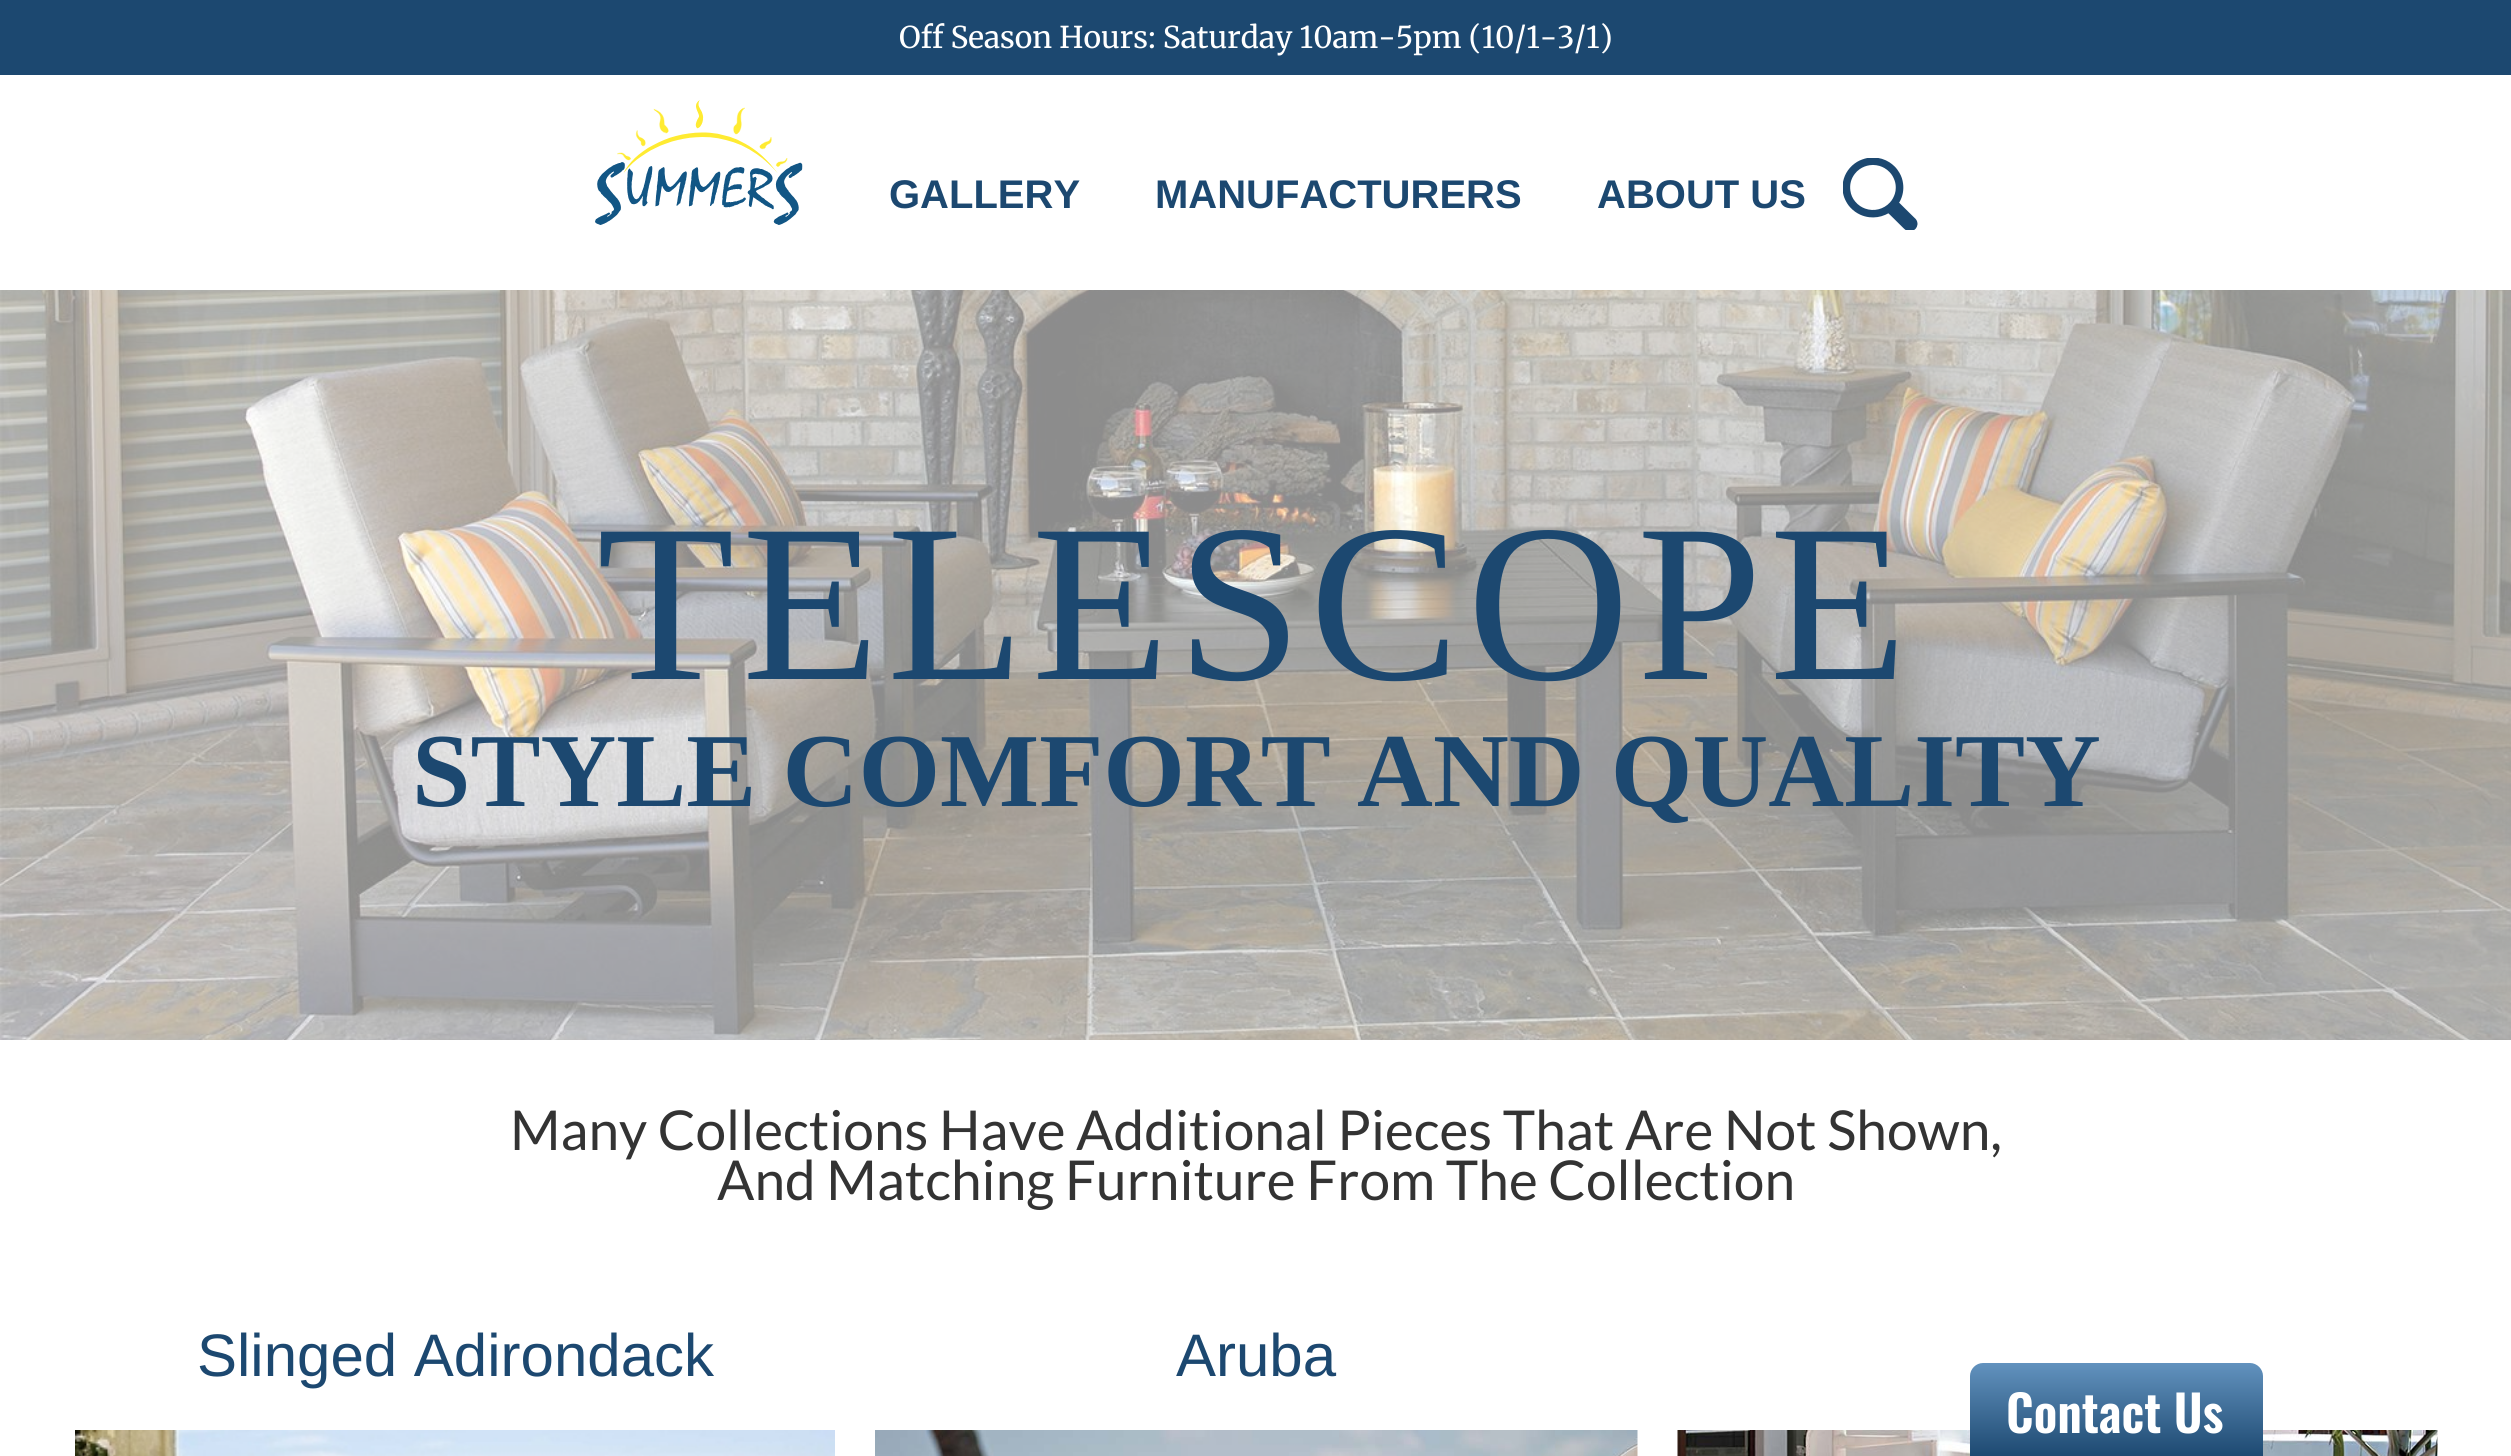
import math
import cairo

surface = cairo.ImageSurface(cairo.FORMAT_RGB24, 2511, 1456)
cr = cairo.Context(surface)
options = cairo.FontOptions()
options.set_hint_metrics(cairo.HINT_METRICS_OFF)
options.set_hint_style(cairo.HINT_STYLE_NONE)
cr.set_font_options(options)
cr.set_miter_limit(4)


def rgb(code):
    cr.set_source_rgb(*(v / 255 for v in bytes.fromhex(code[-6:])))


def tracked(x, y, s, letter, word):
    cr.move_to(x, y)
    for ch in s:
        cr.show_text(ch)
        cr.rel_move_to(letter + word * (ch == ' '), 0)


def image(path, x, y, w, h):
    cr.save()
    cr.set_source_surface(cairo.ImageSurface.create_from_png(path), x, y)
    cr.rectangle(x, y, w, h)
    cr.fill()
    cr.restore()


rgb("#ffffff")
cr.paint()
rgb("#1c4870")
cr.rectangle(0, 0, 2511, 75)
cr.fill()
image("img/1.png", 595, 100, 208, 125)
image("img/2.png", 1843, 158, 75, 72)
image("img/3.png", 0, 290, 2511, 750)
image("img/4.png", 75, 1430, 760, 26)
image("img/5.png", 875, 1430, 763, 26)
image("img/6.png", 1677, 1430, 761, 26)
gradient = cairo.LinearGradient(2116, 1363, 2116, 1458)
gradient.add_color_stop_rgba(0, 0.384, 0.573, 0.745, 1)
gradient.add_color_stop_rgba(1, 0.11, 0.282, 0.439, 1)
cr.set_source(gradient)
cr.new_path()
cr.move_to(1983, 1363)
cr.line_to(2250, 1363)
cr.curve_to(2257, 1363, 2263, 1369, 2263, 1376)
cr.line_to(2263, 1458)
cr.line_to(1970, 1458)
cr.line_to(1970, 1376)
cr.curve_to(1970, 1369, 1976, 1363, 1983, 1363)
cr.close_path()
cr.fill()
cr.select_font_face("Merriweather")
cr.set_font_size(30)
rgb("#ffffff")
cr.move_to(899, 48)
cr.show_text("Off Season Hours: Saturday 10am-5pm (10/1-3/1)")
cr.select_font_face("Liberation Sans", cairo.FONT_SLANT_NORMAL, cairo.FONT_WEIGHT_BOLD)
cr.set_font_size(40)
rgb("#1c4870")
for x, y, s in [
    (889, 208, "GALLERY"),
    (1155, 208, "MANUFACTURERS"),
    (1597, 208, "ABOUT US"),
]:
    cr.move_to(x, y)
    cr.show_text(s)
cr.select_font_face("Liberation Serif")
cr.set_font_size(225)
tracked(597, 679, "TELESCOPE", 7.5, 0)
cr.select_font_face("Liberation Serif", cairo.FONT_SLANT_NORMAL, cairo.FONT_WEIGHT_BOLD)
cr.set_font_size(105)
cr.move_to(412, 806)
cr.show_text("STYLE COMFORT AND QUALITY")
cr.select_font_face("Lato")
cr.set_font_size(55)
rgb("#333333")
cr.move_to(510, 1150)
cr.show_text("Many Collections Have Additional Pieces That Are Not Shown,")
cr.move_to(717, 1200)
cr.show_text("And Matching Furniture From The Collection")
cr.select_font_face("Liberation Sans")
cr.set_font_size(60)
rgb("#1c4870")
cr.move_to(197, 1376)
cr.show_text("Slinged Adirondack")
cr.move_to(1176, 1376)
cr.show_text("Aruba")
cr.select_font_face("Oswald SemiBold")
cr.set_font_size(50)
rgb("#ffffff")
cr.move_to(2006, 1433)
cr.show_text("Contact Us")
surface.write_to_png("page.png")
